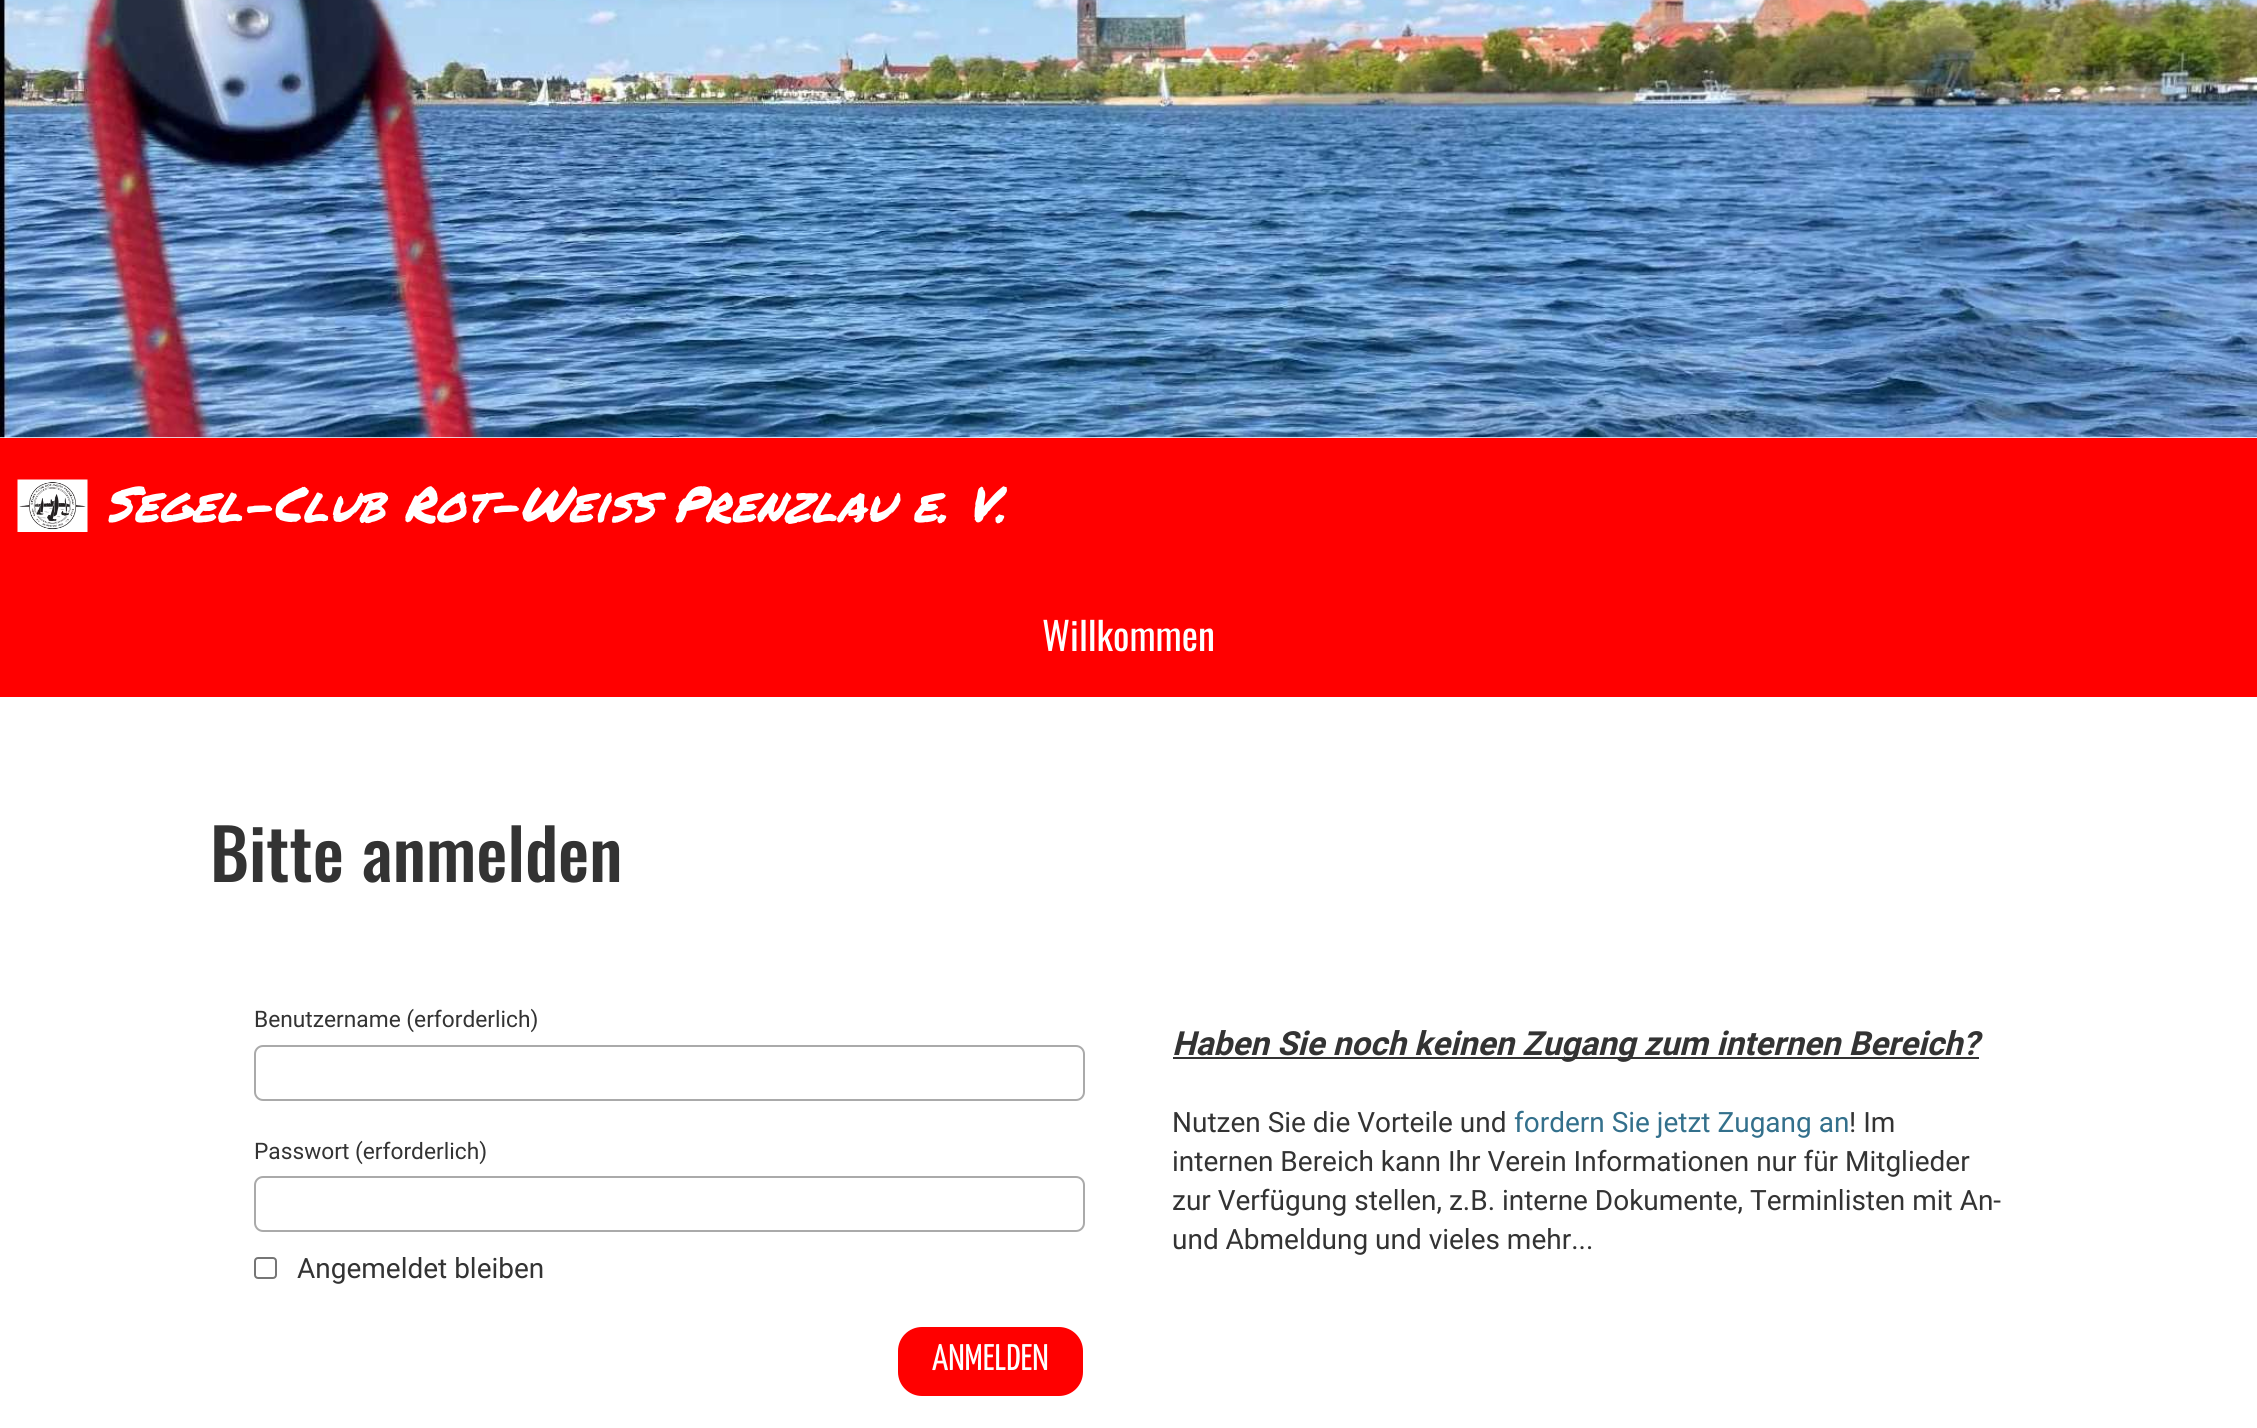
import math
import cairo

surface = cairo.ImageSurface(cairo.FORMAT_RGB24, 2257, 1428)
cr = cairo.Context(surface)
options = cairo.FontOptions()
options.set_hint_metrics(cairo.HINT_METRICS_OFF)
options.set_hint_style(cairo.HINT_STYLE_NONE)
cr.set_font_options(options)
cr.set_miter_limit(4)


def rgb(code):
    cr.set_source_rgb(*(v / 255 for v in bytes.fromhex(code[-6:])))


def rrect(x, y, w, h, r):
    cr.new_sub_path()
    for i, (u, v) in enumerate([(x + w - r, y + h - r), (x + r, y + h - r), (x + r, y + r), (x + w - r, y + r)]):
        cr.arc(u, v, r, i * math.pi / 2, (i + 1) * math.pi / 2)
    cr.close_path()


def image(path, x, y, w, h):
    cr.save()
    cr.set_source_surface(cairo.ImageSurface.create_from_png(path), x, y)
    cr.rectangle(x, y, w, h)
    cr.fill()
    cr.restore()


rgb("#ffffff")
cr.paint()
image("img/1.png", 0, 0, 2257, 438)
rgb("#ff0000")
cr.rectangle(0, 438, 2257, 259)
cr.fill()
image("img/2.png", 17, 479, 71, 53)
rrect(255, 1046, 829, 54, 8)
rgb("#aaaaaa")
cr.stroke()
rrect(255, 1177, 829, 54, 8)
cr.stroke()
rrect(255, 1258, 21, 20, 3)
rgb("#767676")
cr.stroke()
rgb("#ff0000")
rrect(897, 1326, 187, 71, 25)
cr.fill_preserve()
rgb("#ffffff")
cr.stroke()
rgb("#333333")
cr.rectangle(1173, 1057, 806, 2)
cr.fill()
cr.select_font_face("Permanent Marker", cairo.FONT_SLANT_ITALIC)
cr.set_font_size(49)
rgb("#ffffff")
cr.move_to(105, 522)
cr.show_text("Segel-Club Rot-Weiß Prenzlau e. V.")
cr.select_font_face("Oswald")
cr.set_font_size(38.5)
cr.move_to(1042, 651)
cr.show_text("Willkommen")
cr.select_font_face("Oswald Medium")
cr.set_font_size(70)
rgb("#333333")
cr.move_to(210, 882)
cr.show_text("Bitte anmelden")
cr.select_font_face("Roboto")
cr.set_font_size(22.75)
cr.move_to(254, 1027)
cr.show_text("Benutzername (erforderlich)")
cr.move_to(254, 1159)
cr.show_text("Passwort (erforderlich)")
cr.set_font_size(28)
cr.move_to(297, 1278)
cr.show_text("Angemeldet bleiben")
cr.select_font_face("Yanone Kaffeesatz")
cr.set_font_size(37)
rgb("#ffffff")
cr.move_to(932, 1370)
cr.show_text("ANMELDEN")
cr.select_font_face("Roboto", cairo.FONT_SLANT_ITALIC, cairo.FONT_WEIGHT_BOLD)
cr.set_font_size(33.25)
rgb("#333333")
cr.move_to(1172, 1055)
cr.show_text("Haben Sie noch keinen Zugang zum internen Bereich?")
cr.select_font_face("Roboto")
cr.set_font_size(28)
cr.move_to(1172, 1132)
cr.show_text("Nutzen Sie die Vorteile und")
rgb("#33708c")
cr.move_to(1514, 1132)
cr.show_text("fordern Sie jetzt Zugang an")
rgb("#333333")
for x, y, s in [
    (1849, 1132, "! Im"),
    (1172, 1171, "internen Bereich kann Ihr Verein Informationen nur für Mitglieder"),
    (1172, 1210, "zur Verfügung stellen, z.B. interne Dokumente, Terminlisten mit An-"),
    (1172, 1249, "und Abmeldung und vieles mehr..."),
]:
    cr.move_to(x, y)
    cr.show_text(s)
surface.write_to_png("page.png")
